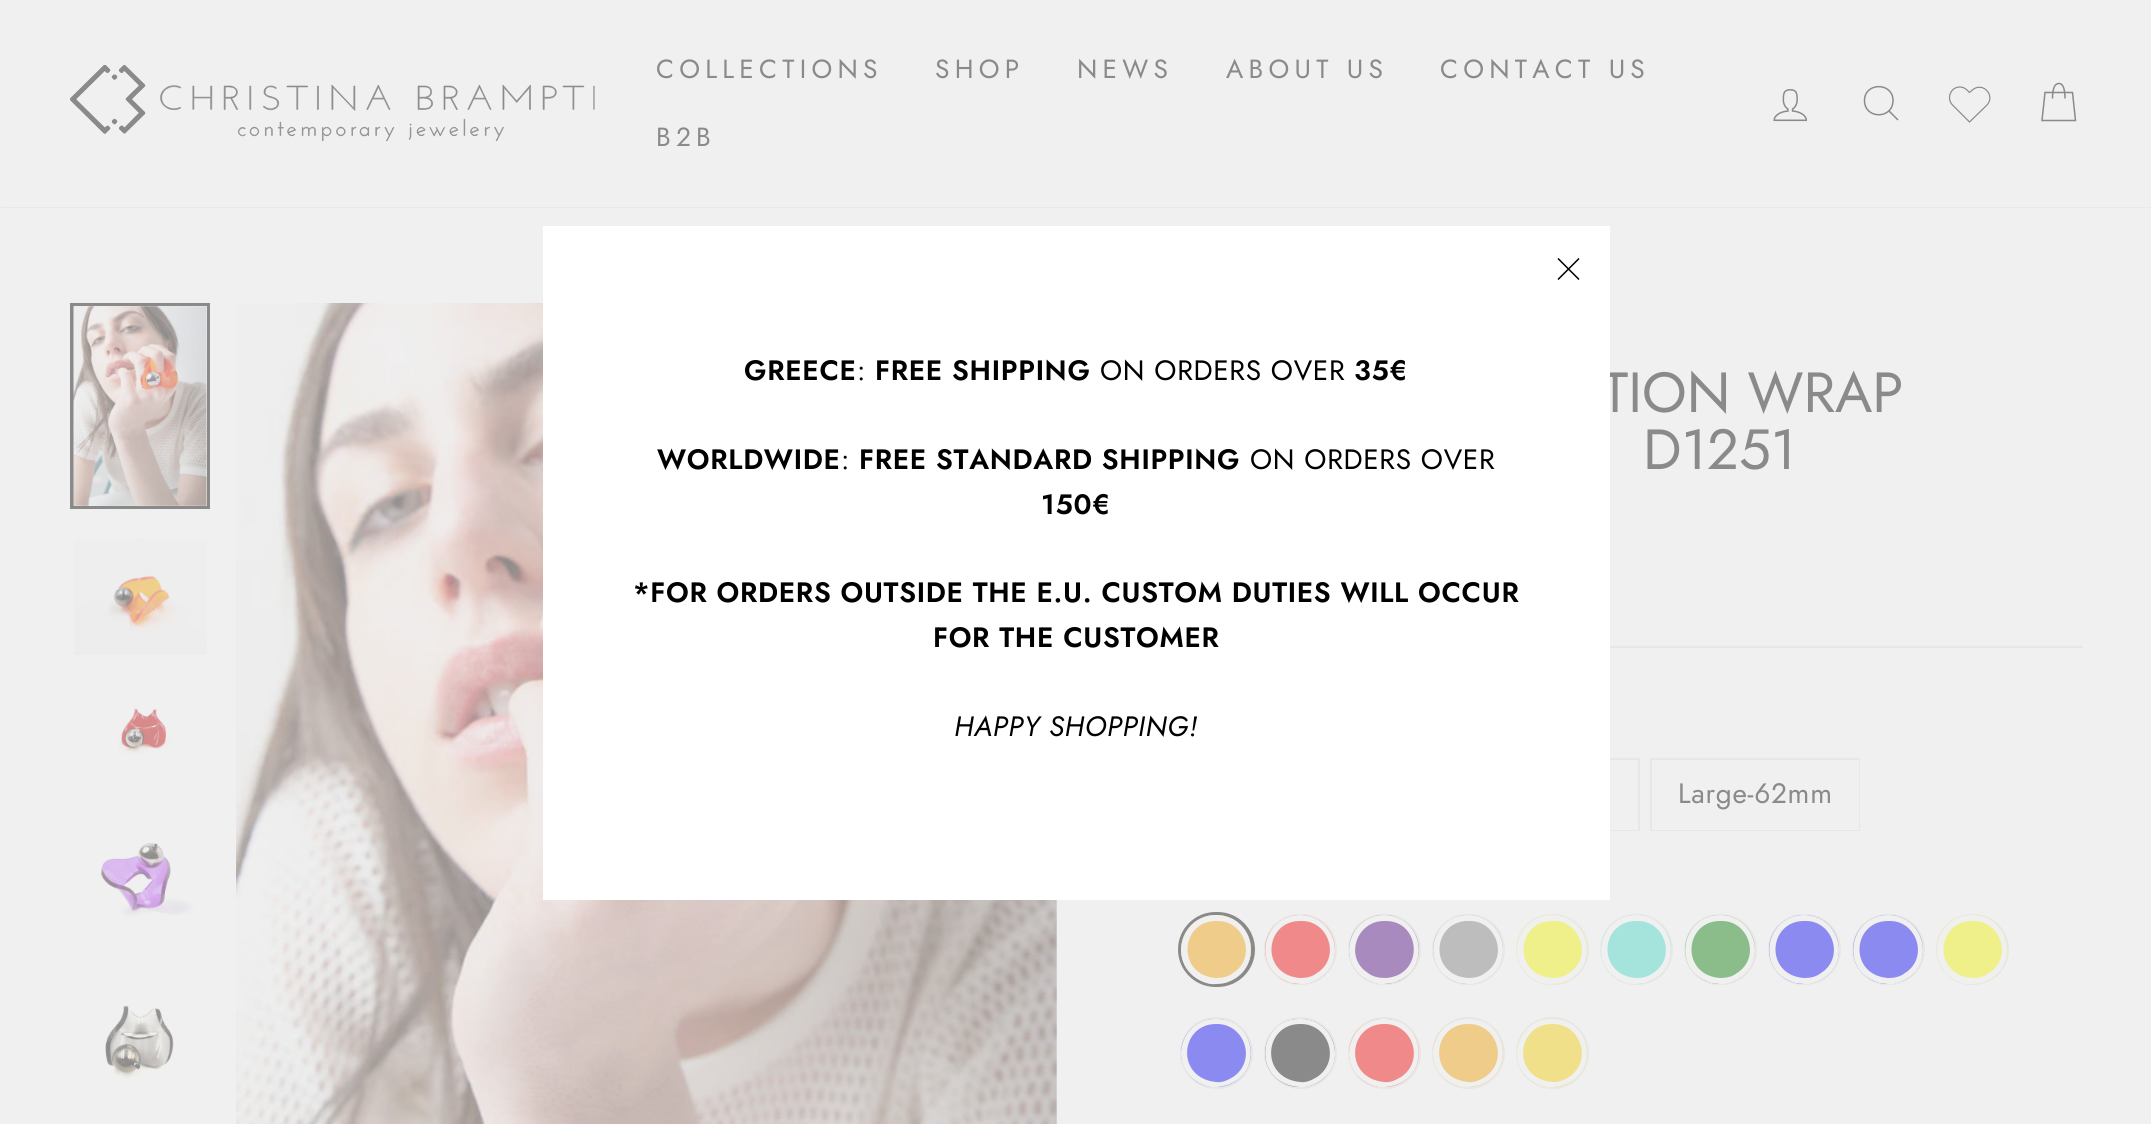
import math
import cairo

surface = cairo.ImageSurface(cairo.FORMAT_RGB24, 2151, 1124)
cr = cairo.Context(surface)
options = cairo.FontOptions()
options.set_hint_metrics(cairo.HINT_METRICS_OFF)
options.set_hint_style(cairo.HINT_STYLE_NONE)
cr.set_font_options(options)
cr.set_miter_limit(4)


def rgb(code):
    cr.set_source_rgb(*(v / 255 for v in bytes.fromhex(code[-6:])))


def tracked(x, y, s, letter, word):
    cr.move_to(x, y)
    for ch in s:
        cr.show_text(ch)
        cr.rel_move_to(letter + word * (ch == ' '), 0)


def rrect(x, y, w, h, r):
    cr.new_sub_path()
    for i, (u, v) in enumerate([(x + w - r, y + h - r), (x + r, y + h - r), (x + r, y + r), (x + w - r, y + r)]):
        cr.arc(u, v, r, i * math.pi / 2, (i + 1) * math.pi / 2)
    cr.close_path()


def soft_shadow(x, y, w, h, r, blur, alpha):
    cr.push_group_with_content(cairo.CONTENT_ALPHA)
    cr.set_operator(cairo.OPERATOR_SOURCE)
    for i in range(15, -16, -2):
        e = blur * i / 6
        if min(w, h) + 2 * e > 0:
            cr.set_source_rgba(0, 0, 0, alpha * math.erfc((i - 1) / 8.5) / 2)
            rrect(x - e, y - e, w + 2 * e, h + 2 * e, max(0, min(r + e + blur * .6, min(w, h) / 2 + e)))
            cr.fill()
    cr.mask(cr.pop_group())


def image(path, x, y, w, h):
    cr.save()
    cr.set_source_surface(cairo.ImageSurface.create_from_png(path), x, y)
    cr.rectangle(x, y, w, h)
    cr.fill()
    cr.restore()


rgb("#f0f0f0")
cr.paint()
rgb("#8a8a8a")
soft_shadow(0, 0, 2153, 207, 0, 1, 0.2)
rgb("#f0f0f0")
cr.rectangle(0, 0, 2151, 207)
cr.fill()
image("img/1.png", 70, 65, 525, 77)
image("img/2.png", 1773, 89, 35, 33)
cr.new_path()
cr.move_to(1893, 100.5)
cr.curve_to(1893, 119.5, 1864.5, 119.5, 1864.5, 100.5)
cr.curve_to(1864.5, 82, 1893, 82, 1893, 100.5)
cr.close_path()
cr.move_to(1898, 120)
cr.line_to(1889, 111)
rgb("#8a8a8a")
cr.set_line_width(1.5)
cr.stroke()
cr.new_path()
cr.move_to(1987, 105)
cr.line_to(1969.5, 122)
cr.line_to(1952.5, 105)
cr.curve_to(1948.5, 101, 1948.5, 94.5, 1952.5, 90)
cr.curve_to(1956.5, 86, 1963, 86, 1967, 90)
cr.line_to(1969.5, 92.5)
cr.curve_to(1971.5, 91, 1973, 89, 1975.5, 88)
cr.curve_to(1986, 84, 1994.5, 97, 1987, 105)
cr.close_path()
cr.set_line_width(1.2)
cr.stroke()
cr.new_path()
cr.move_to(2052.5, 98.5)
cr.curve_to(2052.5, 86.5, 2055.5, 83.5, 2059, 83.5)
cr.curve_to(2062, 83.5, 2065, 86.5, 2065, 98.5)
cr.move_to(2045, 92.5)
cr.line_to(2072.5, 92.5)
cr.line_to(2075.5, 120.5)
cr.line_to(2042, 120.5)
cr.close_path()
cr.set_line_width(1.5)
cr.stroke()
cr.rectangle(72, 305, 136, 202)
cr.set_line_width(4)
cr.stroke()
rgb("#f0f0f0")
cr.rectangle(74, 306, 133, 200)
cr.fill()
image("img/3.png", 73, 306, 134, 200)
image("img/4.png", 74, 539, 133, 116)
image("img/5.png", 116, 708, 83, 49)
image("img/6.png", 100, 843, 93, 74)
image("img/7.png", 105, 1005, 69, 76)
image("img/8.png", 236, 303, 821, 821)
rgb("#e7e7e4")
cr.rectangle(1610, 646, 473, 2)
cr.fill()
cr.rectangle(1399, 759, 240, 71)
cr.set_line_width(2)
cr.stroke()
rgb("#f0f0f0")
cr.rectangle(1610, 829, 28, 1)
cr.fill()
cr.rectangle(1651, 759, 208, 71)
rgb("#e7e7e4")
cr.stroke()
rgb("#f0f0f0")
cr.rectangle(1652, 760, 207, 70)
cr.fill()
rrect(1180, 914, 73, 71, 35.5)
rgb("#8a8a8a")
cr.set_line_width(4)
cr.stroke()
rgb("#f0cc8a")
rrect(1181, 915, 70, 69, 34.5)
cr.fill()
rgb("#f0f0f0")
cr.set_fill_rule(cairo.FILL_RULE_EVEN_ODD)
cr.new_path()
cr.move_to(1216, 915)
cr.curve_to(1182, 915, 1168, 959, 1196, 978)
cr.curve_to(1202, 982, 1210, 985, 1216, 984)
cr.curve_to(1222, 983, 1224, 984, 1230, 981)
cr.curve_to(1264, 967, 1254, 915, 1216, 915)
cr.close_path()
cr.move_to(1216, 921)
cr.curve_to(1180, 921, 1176, 975, 1216, 978)
cr.curve_to(1222, 978, 1228, 977, 1233, 973)
cr.curve_to(1257, 958, 1245, 921, 1218, 921)
cr.close_path()
cr.fill()
rrect(1265, 915, 71, 69, 34.5)
rgb("#e7e7e4")
cr.set_line_width(2)
cr.stroke()
rgb("#f08a8a")
rrect(1265, 915, 70, 69, 34.5)
cr.fill()
rgb("#f0f0f0")
cr.new_path()
cr.move_to(1300, 915)
cr.curve_to(1262, 915, 1252, 967, 1286, 981)
cr.curve_to(1292, 984, 1294, 983, 1300, 984)
cr.curve_to(1306, 985, 1314, 982, 1320, 978)
cr.curve_to(1348, 959, 1334, 915, 1300, 915)
cr.close_path()
cr.move_to(1300, 921)
cr.curve_to(1264, 921, 1260, 975, 1300, 978)
cr.curve_to(1306, 978, 1312, 977, 1317, 973)
cr.curve_to(1341, 958, 1329, 921, 1302, 921)
cr.close_path()
cr.fill()
rrect(1349, 915, 71, 69, 34.5)
rgb("#e7e7e4")
cr.stroke()
rgb("#a88abe")
rrect(1349, 915, 70, 69, 34.5)
cr.fill()
rgb("#f0f0f0")
cr.new_path()
cr.move_to(1384, 915)
cr.curve_to(1350, 915, 1336, 959, 1364, 978)
cr.curve_to(1370, 982, 1378, 985, 1384, 984)
cr.curve_to(1390, 983, 1392, 984, 1398, 981)
cr.curve_to(1432, 967, 1422, 915, 1384, 915)
cr.close_path()
cr.move_to(1384, 921)
cr.curve_to(1356, 921, 1344, 958, 1368, 973)
cr.curve_to(1373, 977, 1379, 978, 1386, 978)
cr.curve_to(1425, 975, 1421, 921, 1386, 921)
cr.close_path()
cr.fill()
rrect(1433, 915, 71, 69, 34.5)
rgb("#e7e7e4")
cr.stroke()
rgb("#bdbdbd")
rrect(1433, 915, 70, 69, 34.5)
cr.fill()
rgb("#f0f0f0")
cr.new_path()
cr.move_to(1468, 915)
cr.curve_to(1430, 915, 1420, 967, 1454, 981)
cr.curve_to(1460, 984, 1462, 983, 1468, 984)
cr.curve_to(1474, 985, 1482, 982, 1488, 978)
cr.curve_to(1516, 959, 1502, 915, 1468, 915)
cr.close_path()
cr.move_to(1468, 921)
cr.curve_to(1432, 921, 1428, 975, 1468, 978)
cr.curve_to(1474, 978, 1480, 977, 1485, 973)
cr.curve_to(1509, 958, 1497, 921, 1470, 921)
cr.close_path()
cr.fill()
rrect(1517, 915, 71, 69, 34.5)
rgb("#e7e7e4")
cr.stroke()
rgb("#f0f08a")
rrect(1517, 915, 70, 69, 34.5)
cr.fill()
rgb("#f0f0f0")
cr.new_path()
cr.move_to(1552, 915)
cr.curve_to(1518, 915, 1504, 959, 1532, 978)
cr.curve_to(1538, 982, 1546, 985, 1552, 984)
cr.curve_to(1558, 983, 1560, 984, 1566, 981)
cr.curve_to(1600, 967, 1590, 915, 1552, 915)
cr.close_path()
cr.move_to(1552, 921)
cr.curve_to(1516, 921, 1512, 975, 1552, 978)
cr.curve_to(1558, 978, 1564, 977, 1569, 973)
cr.curve_to(1593, 958, 1581, 921, 1554, 921)
cr.close_path()
cr.fill()
rrect(1601, 915, 71, 69, 34.5)
rgb("#e7e7e4")
cr.stroke()
rgb("#a4e4dd")
rrect(1601, 915, 70, 69, 34.5)
cr.fill()
rgb("#f0f0f0")
cr.new_path()
cr.move_to(1636, 915)
cr.curve_to(1602, 915, 1588, 959, 1616, 978)
cr.curve_to(1622, 982, 1630, 985, 1636, 984)
cr.curve_to(1642, 983, 1644, 984, 1650, 981)
cr.curve_to(1684, 967, 1674, 915, 1636, 915)
cr.close_path()
cr.move_to(1636, 921)
cr.curve_to(1600, 921, 1596, 975, 1636, 978)
cr.curve_to(1642, 978, 1648, 977, 1653, 973)
cr.curve_to(1677, 958, 1665, 921, 1638, 921)
cr.close_path()
cr.fill()
rrect(1685, 915, 71, 69, 34.5)
rgb("#e7e7e4")
cr.stroke()
rgb("#8abd8a")
rrect(1685, 915, 70, 69, 34.5)
cr.fill()
rgb("#f0f0f0")
cr.new_path()
cr.move_to(1720, 915)
cr.curve_to(1682, 915, 1672, 967, 1706, 981)
cr.curve_to(1712, 984, 1714, 983, 1720, 984)
cr.curve_to(1726, 985, 1734, 982, 1740, 978)
cr.curve_to(1768, 959, 1754, 915, 1720, 915)
cr.close_path()
cr.move_to(1720, 921)
cr.curve_to(1684, 921, 1680, 975, 1720, 978)
cr.curve_to(1726, 978, 1732, 977, 1737, 973)
cr.curve_to(1761, 958, 1749, 921, 1722, 921)
cr.close_path()
cr.fill()
rrect(1769, 915, 71, 69, 34.5)
rgb("#e7e7e4")
cr.stroke()
rgb("#8a8af0")
rrect(1769, 915, 70, 69, 34.5)
cr.fill()
rgb("#f0f0f0")
cr.new_path()
cr.move_to(1804, 915)
cr.curve_to(1766, 915, 1756, 967, 1790, 981)
cr.curve_to(1796, 984, 1798, 983, 1804, 984)
cr.curve_to(1810, 985, 1818, 982, 1824, 978)
cr.curve_to(1852, 959, 1838, 915, 1804, 915)
cr.close_path()
cr.move_to(1804, 921)
cr.curve_to(1768, 921, 1764, 975, 1804, 978)
cr.curve_to(1810, 978, 1816, 977, 1821, 973)
cr.curve_to(1845, 958, 1833, 921, 1806, 921)
cr.close_path()
cr.fill()
rrect(1853, 915, 71, 69, 34.5)
rgb("#e7e7e4")
cr.stroke()
rgb("#8a8af0")
rrect(1853, 915, 70, 69, 34.5)
cr.fill()
rgb("#f0f0f0")
cr.new_path()
cr.move_to(1888, 915)
cr.curve_to(1850, 915, 1840, 967, 1874, 981)
cr.curve_to(1880, 984, 1882, 983, 1888, 984)
cr.curve_to(1894, 985, 1902, 982, 1908, 978)
cr.curve_to(1936, 959, 1922, 915, 1888, 915)
cr.close_path()
cr.move_to(1888, 921)
cr.curve_to(1852, 921, 1848, 975, 1888, 978)
cr.curve_to(1894, 978, 1900, 977, 1905, 973)
cr.curve_to(1929, 958, 1917, 921, 1890, 921)
cr.close_path()
cr.fill()
rrect(1937, 915, 71, 69, 34.5)
rgb("#e7e7e4")
cr.stroke()
rgb("#f0f08a")
rrect(1937, 915, 70, 69, 34.5)
cr.fill()
rgb("#f0f0f0")
cr.new_path()
cr.move_to(1972, 915)
cr.curve_to(1938, 915, 1924, 959, 1952, 978)
cr.curve_to(1958, 982, 1966, 985, 1972, 984)
cr.curve_to(1978, 983, 1980, 984, 1986, 981)
cr.curve_to(2020, 967, 2010, 915, 1972, 915)
cr.close_path()
cr.move_to(1972, 921)
cr.curve_to(1936, 921, 1932, 975, 1972, 978)
cr.curve_to(1978, 978, 1984, 977, 1989, 973)
cr.curve_to(2013, 958, 2001, 921, 1974, 921)
cr.close_path()
cr.fill()
rrect(1181, 1018, 71, 70, 35)
rgb("#e7e7e4")
cr.stroke()
rgb("#8a8af0")
rrect(1181, 1019, 70, 68, 34)
cr.fill()
rgb("#f0f0f0")
cr.new_path()
cr.move_to(1215, 1019)
cr.curve_to(1182, 1019, 1168, 1063, 1196, 1081)
cr.curve_to(1202, 1085, 1210, 1088, 1217, 1087)
cr.curve_to(1265, 1083, 1259, 1019, 1217, 1019)
cr.close_path()
cr.move_to(1216, 1024)
cr.curve_to(1180, 1024, 1175, 1078, 1216, 1082)
cr.curve_to(1222, 1083, 1228, 1080, 1233, 1077)
cr.curve_to(1257, 1061, 1245, 1024, 1217, 1024)
cr.close_path()
cr.fill()
rrect(1265, 1018, 71, 70, 35)
rgb("#e7e7e4")
cr.stroke()
rgb("#8a8a8a")
rrect(1265, 1019, 70, 68, 34)
cr.fill()
rgb("#f0f0f0")
cr.new_path()
cr.move_to(1299, 1019)
cr.curve_to(1257, 1019, 1251, 1083, 1299, 1087)
cr.curve_to(1306, 1088, 1314, 1085, 1320, 1081)
cr.curve_to(1348, 1063, 1334, 1019, 1301, 1019)
cr.close_path()
cr.move_to(1300, 1024)
cr.curve_to(1264, 1024, 1259, 1078, 1300, 1082)
cr.curve_to(1306, 1083, 1312, 1080, 1317, 1077)
cr.curve_to(1341, 1061, 1329, 1024, 1301, 1024)
cr.close_path()
cr.fill()
rrect(1349, 1018, 71, 70, 35)
rgb("#e7e7e4")
cr.stroke()
rgb("#f08a8a")
rrect(1349, 1019, 70, 68, 34)
cr.fill()
rgb("#f0f0f0")
cr.new_path()
cr.move_to(1383, 1019)
cr.curve_to(1350, 1019, 1336, 1063, 1364, 1081)
cr.curve_to(1370, 1085, 1378, 1088, 1385, 1087)
cr.curve_to(1433, 1083, 1427, 1019, 1385, 1019)
cr.close_path()
cr.move_to(1384, 1024)
cr.curve_to(1348, 1024, 1343, 1078, 1384, 1082)
cr.curve_to(1390, 1083, 1396, 1080, 1401, 1077)
cr.curve_to(1425, 1061, 1413, 1024, 1385, 1024)
cr.close_path()
cr.fill()
rrect(1433, 1018, 71, 70, 35)
rgb("#e7e7e4")
cr.stroke()
rgb("#f0cc8a")
rrect(1433, 1019, 70, 68, 34)
cr.fill()
rgb("#f0f0f0")
cr.new_path()
cr.move_to(1467, 1019)
cr.curve_to(1434, 1019, 1420, 1063, 1448, 1081)
cr.curve_to(1454, 1085, 1462, 1088, 1469, 1087)
cr.curve_to(1517, 1083, 1511, 1019, 1469, 1019)
cr.close_path()
cr.move_to(1468, 1024)
cr.curve_to(1432, 1024, 1427, 1078, 1468, 1082)
cr.curve_to(1474, 1083, 1480, 1080, 1485, 1077)
cr.curve_to(1509, 1061, 1497, 1024, 1469, 1024)
cr.close_path()
cr.fill()
rrect(1517, 1018, 71, 70, 35)
rgb("#e7e7e4")
cr.stroke()
rgb("#f0e08a")
rrect(1517, 1019, 70, 68, 34)
cr.fill()
rgb("#f0f0f0")
cr.new_path()
cr.move_to(1551, 1019)
cr.curve_to(1518, 1019, 1504, 1063, 1532, 1081)
cr.curve_to(1538, 1085, 1546, 1088, 1553, 1087)
cr.curve_to(1601, 1083, 1595, 1019, 1553, 1019)
cr.close_path()
cr.move_to(1552, 1024)
cr.curve_to(1516, 1024, 1511, 1078, 1552, 1082)
cr.curve_to(1558, 1083, 1564, 1080, 1569, 1077)
cr.curve_to(1593, 1061, 1581, 1024, 1553, 1024)
cr.close_path()
cr.fill()
cr.select_font_face("Jost")
cr.set_font_size(26.25)
rgb("#8a8a8a")
for x, y, s in [
    (656, 78, "COLLECTIONS"),
    (935, 78, "SHOP"),
    (1077, 78, "NEWS"),
    (1226, 78, "ABOUT US"),
    (1440, 78, "CONTACT US"),
    (656, 146, "B2B"),
]:
    tracked(x, y, s, 5.25, 0)
cr.set_font_size(56.5)
cr.move_to(1602, 412)
cr.show_text("TION WRAP")
cr.move_to(1643, 469)
cr.show_text("D1251")
cr.set_font_size(28)
tracked(1678, 803, "Large-62mm", 0.7, 0)
rgb("#ffffff")
cr.rectangle(543, 226, 1067, 674)
cr.fill()
cr.new_path()
cr.move_to(1558, 258.5)
cr.line_to(1579, 279.5)
cr.move_to(1579, 258.5)
cr.line_to(1558, 279.5)
rgb("#000000")
cr.set_line_width(1.5)
cr.stroke()
cr.select_font_face("Jost SemiBold")
tracked(744, 380, "GREECE", 0.7, 0)
cr.select_font_face("Jost")
tracked(857, 380, ":", 0.7, 0)
cr.select_font_face("Jost SemiBold")
tracked(875, 380, "FREE SHIPPING", 0.7, 0)
cr.select_font_face("Jost")
tracked(1100, 380, "ON ORDERS OVER", 0.7, 0)
cr.select_font_face("Jost SemiBold")
tracked(1354, 380, "35€", 0.7, 0)
tracked(657, 469, "WORLDWIDE", 0.7, 0)
cr.select_font_face("Jost")
tracked(841, 469, ":", 0.7, 0)
cr.select_font_face("Jost SemiBold")
tracked(859, 469, "FREE STANDARD SHIPPING", 0.7, 0)
cr.select_font_face("Jost")
tracked(1250, 469, "ON ORDERS OVER", 0.7, 0)
cr.select_font_face("Jost SemiBold")
for x, y, s in [
    (1041, 514, "150€"),
    (633, 602, "*FOR ORDERS OUTSIDE THE E.U. CUSTOM DUTIES WILL OCCUR"),
    (933, 647, "FOR THE CUSTOMER"),
]:
    tracked(x, y, s, 0.7, 0)
cr.select_font_face("Jost", cairo.FONT_SLANT_ITALIC)
tracked(954, 736, "HAPPY SHOPPING!", 0.7, 0)
surface.write_to_png("page.png")
